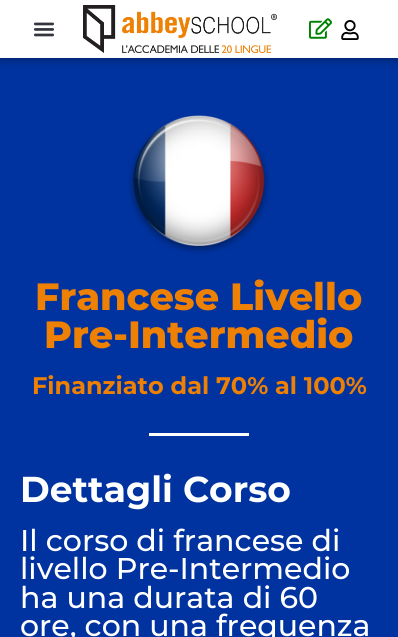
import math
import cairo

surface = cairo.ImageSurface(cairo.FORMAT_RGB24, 398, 637)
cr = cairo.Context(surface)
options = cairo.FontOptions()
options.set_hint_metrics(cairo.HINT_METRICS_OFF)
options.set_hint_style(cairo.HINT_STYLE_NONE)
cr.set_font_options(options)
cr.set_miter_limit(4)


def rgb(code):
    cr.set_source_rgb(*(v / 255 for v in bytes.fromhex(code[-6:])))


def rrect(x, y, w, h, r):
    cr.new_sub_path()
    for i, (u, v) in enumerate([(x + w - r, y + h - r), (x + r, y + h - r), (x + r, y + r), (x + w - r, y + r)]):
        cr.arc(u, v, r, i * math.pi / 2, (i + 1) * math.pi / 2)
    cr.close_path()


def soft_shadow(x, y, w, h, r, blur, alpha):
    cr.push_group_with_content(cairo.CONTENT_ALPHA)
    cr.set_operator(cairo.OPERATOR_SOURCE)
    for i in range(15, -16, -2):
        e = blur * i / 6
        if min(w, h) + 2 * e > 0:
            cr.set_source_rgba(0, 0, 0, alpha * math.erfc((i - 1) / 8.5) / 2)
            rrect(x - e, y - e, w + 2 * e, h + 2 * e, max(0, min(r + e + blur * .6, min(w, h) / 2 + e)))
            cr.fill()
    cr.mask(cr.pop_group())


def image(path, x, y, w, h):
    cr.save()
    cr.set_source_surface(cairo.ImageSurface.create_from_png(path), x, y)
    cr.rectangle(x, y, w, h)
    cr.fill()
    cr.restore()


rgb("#0033a0")
cr.paint()
rgb("#000000")
soft_shadow(0, 0, 398, 58, 0, 5, 0.5)
rgb("#ffffff")
cr.rectangle(0, 0, 398, 58)
cr.fill()
image("img/1.png", 33, 22, 22, 15)
image("img/2.png", 83, 5, 194, 48)
image("img/3.png", 309, 18, 23, 21)
image("img/4.png", 341, 20, 18, 20)
image("img/5.png", 128, 115, 142, 139)
cr.rectangle(149, 433, 100, 3)
cr.fill()
cr.select_font_face("Montserrat ExtraBold")
cr.set_font_size(38)
rgb("#ee8003")
cr.move_to(35, 310)
cr.show_text("Francese Livello")
cr.move_to(44, 348)
cr.show_text("Pre-Intermedio")
cr.select_font_face("Montserrat", cairo.FONT_SLANT_NORMAL, cairo.FONT_WEIGHT_BOLD)
cr.set_font_size(24)
cr.move_to(32, 394)
cr.show_text("Finanziato dal 70% al 100%")
cr.set_font_size(36)
rgb("#ffffff")
cr.move_to(20, 502)
cr.show_text("Dettagli Corso")
cr.select_font_face("Montserrat Medium")
cr.set_font_size(30)
for x, y, s in [
    (20, 551, "Il corso di francese di"),
    (20, 579, "livello Pre-Intermedio"),
    (20, 608, "ha una durata di 60"),
    (20, 636, "ore, con una frequenza"),
]:
    cr.move_to(x, y)
    cr.show_text(s)
surface.write_to_png("page.png")
